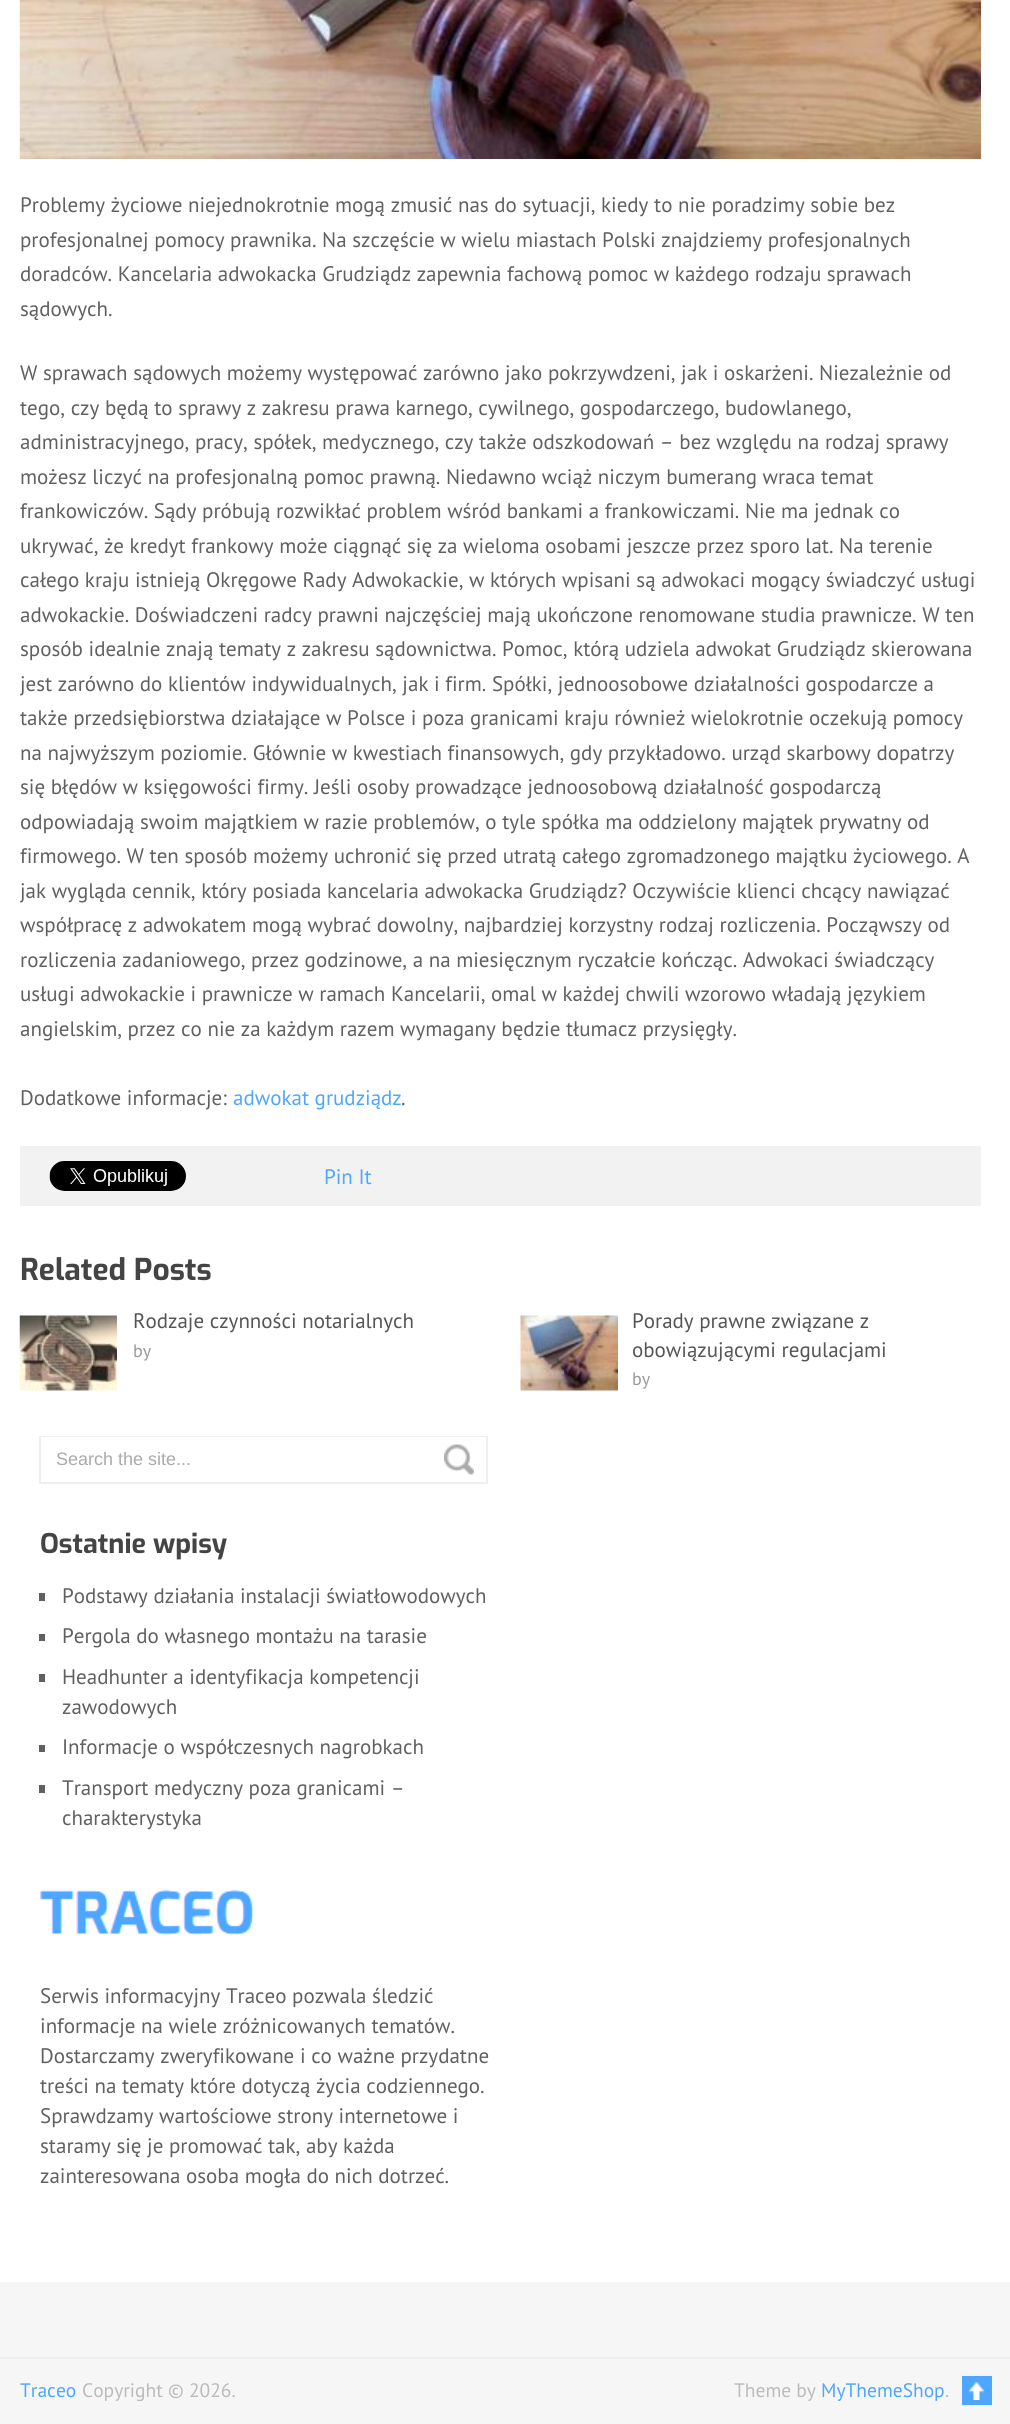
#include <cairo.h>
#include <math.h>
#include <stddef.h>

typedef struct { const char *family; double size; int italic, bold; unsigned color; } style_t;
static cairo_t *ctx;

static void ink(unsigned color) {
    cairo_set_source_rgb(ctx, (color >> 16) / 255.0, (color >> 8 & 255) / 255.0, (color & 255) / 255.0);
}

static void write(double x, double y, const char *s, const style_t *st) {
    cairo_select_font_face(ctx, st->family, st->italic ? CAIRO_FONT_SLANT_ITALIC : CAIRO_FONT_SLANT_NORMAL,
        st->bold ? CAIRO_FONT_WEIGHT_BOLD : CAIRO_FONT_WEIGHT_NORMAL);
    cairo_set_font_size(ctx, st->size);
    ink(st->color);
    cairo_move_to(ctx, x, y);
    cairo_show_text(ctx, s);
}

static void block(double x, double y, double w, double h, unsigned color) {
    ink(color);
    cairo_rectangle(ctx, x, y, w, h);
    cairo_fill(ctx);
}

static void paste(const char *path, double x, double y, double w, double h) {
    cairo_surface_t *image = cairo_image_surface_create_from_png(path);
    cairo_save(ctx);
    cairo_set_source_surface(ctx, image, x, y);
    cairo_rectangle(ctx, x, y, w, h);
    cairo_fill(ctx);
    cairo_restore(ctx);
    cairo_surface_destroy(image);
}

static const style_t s1 = {"PT Sans", 21, 0, 0, 0x606060};
static const style_t s2 = {"PT Sans", 21, 0, 0, 0x4da6ff};
static const style_t s3 = {"Exo", 30, 0, 1, 0x444444};
static const style_t s4 = {"PT Sans", 21, 0, 0, 0x555555};
static const style_t s5 = {"PT Sans", 18, 0, 0, 0x999999};
static const style_t s6 = {"Liberation Sans", 18, 0, 0, 0xaaaaaa};
static const style_t s7 = {"Exo", 27, 0, 1, 0x444444};
static const style_t s8 = {"PT Sans", 19.5, 0, 0, 0x4da6ff};
static const style_t s9 = {"PT Sans", 19.5, 0, 0, 0xbbbbbb};

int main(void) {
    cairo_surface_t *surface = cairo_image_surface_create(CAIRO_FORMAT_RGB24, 1010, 2424);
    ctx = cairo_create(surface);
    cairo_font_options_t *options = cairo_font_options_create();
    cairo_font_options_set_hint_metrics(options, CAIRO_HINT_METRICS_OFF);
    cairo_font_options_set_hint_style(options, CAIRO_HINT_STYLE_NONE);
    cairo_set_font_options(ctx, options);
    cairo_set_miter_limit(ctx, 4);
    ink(0xffffff);
    cairo_paint(ctx);
    paste("pic1.png", 19, 0, 962, 159);
    write(20, 212, "Problemy życiowe niejednokrotnie mogą zmusić nas do sytuacji, kiedy to nie poradzimy sobie bez", &s1);
    write(20, 247, "profesjonalnej pomocy prawnika. Na szczęście w wielu miastach Polski znajdziemy profesjonalnych", &s1);
    write(20, 281, "doradców. Kancelaria adwokacka Grudziądz zapewnia fachową pomoc w każdego rodzaju sprawach", &s1);
    write(20, 316, "sądowych.", &s1);
    write(20, 380, "W sprawach sądowych możemy występować zarówno jako pokrzywdzeni, jak i oskarżeni. Niezależnie od", &s1);
    write(20, 415, "tego, czy będą to sprawy z zakresu prawa karnego, cywilnego, gospodarczego, budowlanego,", &s1);
    write(20, 449, "administracyjnego, pracy, spółek, medycznego, czy także odszkodowań – bez względu na rodzaj sprawy", &s1);
    write(20, 484, "możesz liczyć na profesjonalną pomoc prawną. Niedawno wciąż niczym bumerang wraca temat", &s1);
    write(20, 518, "frankowiczów. Sądy próbują rozwikłać problem wśród bankami a frankowiczami. Nie ma jednak co", &s1);
    write(20, 553, "ukrywać, że kredyt frankowy może ciągnąć się za wieloma osobami jeszcze przez sporo lat. Na terenie", &s1);
    write(20, 587, "całego kraju istnieją Okręgowe Rady Adwokackie, w których wpisani są adwokaci mogący świadczyć usługi", &s1);
    write(20, 622, "adwokackie. Doświadczeni radcy prawni najczęściej mają ukończone renomowane studia prawnicze. W ten", &s1);
    write(20, 656, "sposób idealnie znają tematy z zakresu sądownictwa. Pomoc, którą udziela adwokat Grudziądz skierowana", &s1);
    write(20, 691, "jest zarówno do klientów indywidualnych, jak i firm. Spółki, jednoosobowe działalności gospodarcze a", &s1);
    write(20, 725, "także przedsiębiorstwa działające w Polsce i poza granicami kraju również wielokrotnie oczekują pomocy", &s1);
    write(20, 760, "na najwyższym poziomie. Głównie w kwestiach finansowych, gdy przykładowo. urząd skarbowy dopatrzy", &s1);
    write(20, 794, "się błędów w księgowości firmy. Jeśli osoby prowadzące jednoosobową działalność gospodarczą", &s1);
    write(20, 829, "odpowiadają swoim majątkiem w razie problemów, o tyle spółka ma oddzielony majątek prywatny od", &s1);
    write(20, 863, "firmowego. W ten sposób możemy uchronić się przed utratą całego zgromadzonego majątku życiowego. A", &s1);
    write(20, 898, "jak wygląda cennik, który posiada kancelaria adwokacka Grudziądz? Oczywiście klienci chcący nawiązać", &s1);
    write(20, 932, "współpracę z adwokatem mogą wybrać dowolny, najbardziej korzystny rodzaj rozliczenia. Począwszy od", &s1);
    write(20, 967, "rozliczenia zadaniowego, przez godzinowe, a na miesięcznym ryczałcie kończąc. Adwokaci świadczący", &s1);
    write(20, 1001, "usługi adwokackie i prawnicze w ramach Kancelarii, omal w każdej chwili wzorowo władają językiem", &s1);
    write(20, 1036, "angielskim, przez co nie za każdym razem wymagany będzie tłumacz przysięgły.", &s1);
    write(20, 1105, "Dodatkowe informacje:", &s1);
    write(233, 1105, "adwokat grudziądz", &s2);
    write(401, 1105, ".", &s1);
    block(20, 1146, 961, 60, 0xf2f2f2);
    paste("pic2.png", 49, 1161, 137, 30);
    write(324, 1184, "Pin It", &s2);
    write(20, 1280, "Related Posts", &s3);
    paste("pic3.png", 19, 1315, 98, 76);
    write(133, 1328, "Rodzaje czynności notarialnych", &s4);
    write(133, 1357, "by", &s5);
    paste("pic4.png", 520, 1315, 98, 76);
    write(632, 1328, "Porady prawne związane z", &s4);
    write(632, 1357, "obowiązującymi regulacjami", &s4);
    write(632, 1385, "by", &s5);
    cairo_rectangle(ctx, 40, 1437, 447, 46);
    ink(0xefefef);
    cairo_stroke(ctx);
    block(41, 1437, 445, 1, 0xffffff);
    paste("pic5.png", 444, 1444, 30, 31);
    write(56, 1465, "Search the site...", &s6);
    write(40, 1553, "Ostatnie wpisy", &s7);
    block(39, 1593, 6, 8, 0x606060);
    write(62, 1603, "Podstawy działania instalacji światłowodowych", &s1);
    block(39, 1634, 6, 7, 0x606060);
    write(62, 1643, "Pergola do własnego montażu na tarasie", &s1);
    block(39, 1674, 6, 8, 0x606060);
    write(62, 1684, "Headhunter a identyfikacja kompetencji", &s1);
    write(62, 1714, "zawodowych", &s1);
    block(39, 1745, 6, 7, 0x606060);
    write(62, 1754, "Informacje o współczesnych nagrobkach", &s1);
    block(39, 1785, 6, 8, 0x606060);
    write(62, 1795, "Transport medyczny poza granicami –", &s1);
    write(62, 1825, "charakterystyka", &s1);
    paste("pic6.png", 40, 1889, 214, 47);
    write(40, 2003, "Serwis informacyjny Traceo pozwala śledzić", &s1);
    write(40, 2033, "informacje na wiele zróżnicowanych tematów.", &s1);
    write(40, 2063, "Dostarczamy zweryfikowane i co ważne przydatne", &s1);
    write(40, 2093, "treści na tematy które dotyczą życia codziennego.", &s1);
    write(40, 2123, "Sprawdzamy wartościowe strony internetowe i", &s1);
    write(40, 2153, "staramy się je promować tak, aby każda", &s1);
    write(40, 2183, "zainteresowana osoba mogła do nich dotrzeć.", &s1);
    block(0, 2282, 1010, 142, 0xf6f6f6);
    block(0, 2357, 1010, 2, 0xefefef);
    write(20, 2397, "Traceo", &s8);
    write(82, 2397, "Copyright © 2026.", &s9);
    block(962, 2376, 30, 29, 0x4da6ff);
    write(734, 2397, "Theme by", &s9);
    write(821, 2397, "MyThemeShop", &s8);
    write(945, 2397, ".", &s9);
    paste("pic7.png", 969, 2382, 15, 18);
    cairo_surface_write_to_png(surface, "screenshot.png");
    cairo_font_options_destroy(options);
    cairo_destroy(ctx);
    cairo_surface_destroy(surface);
    return 0;
}
